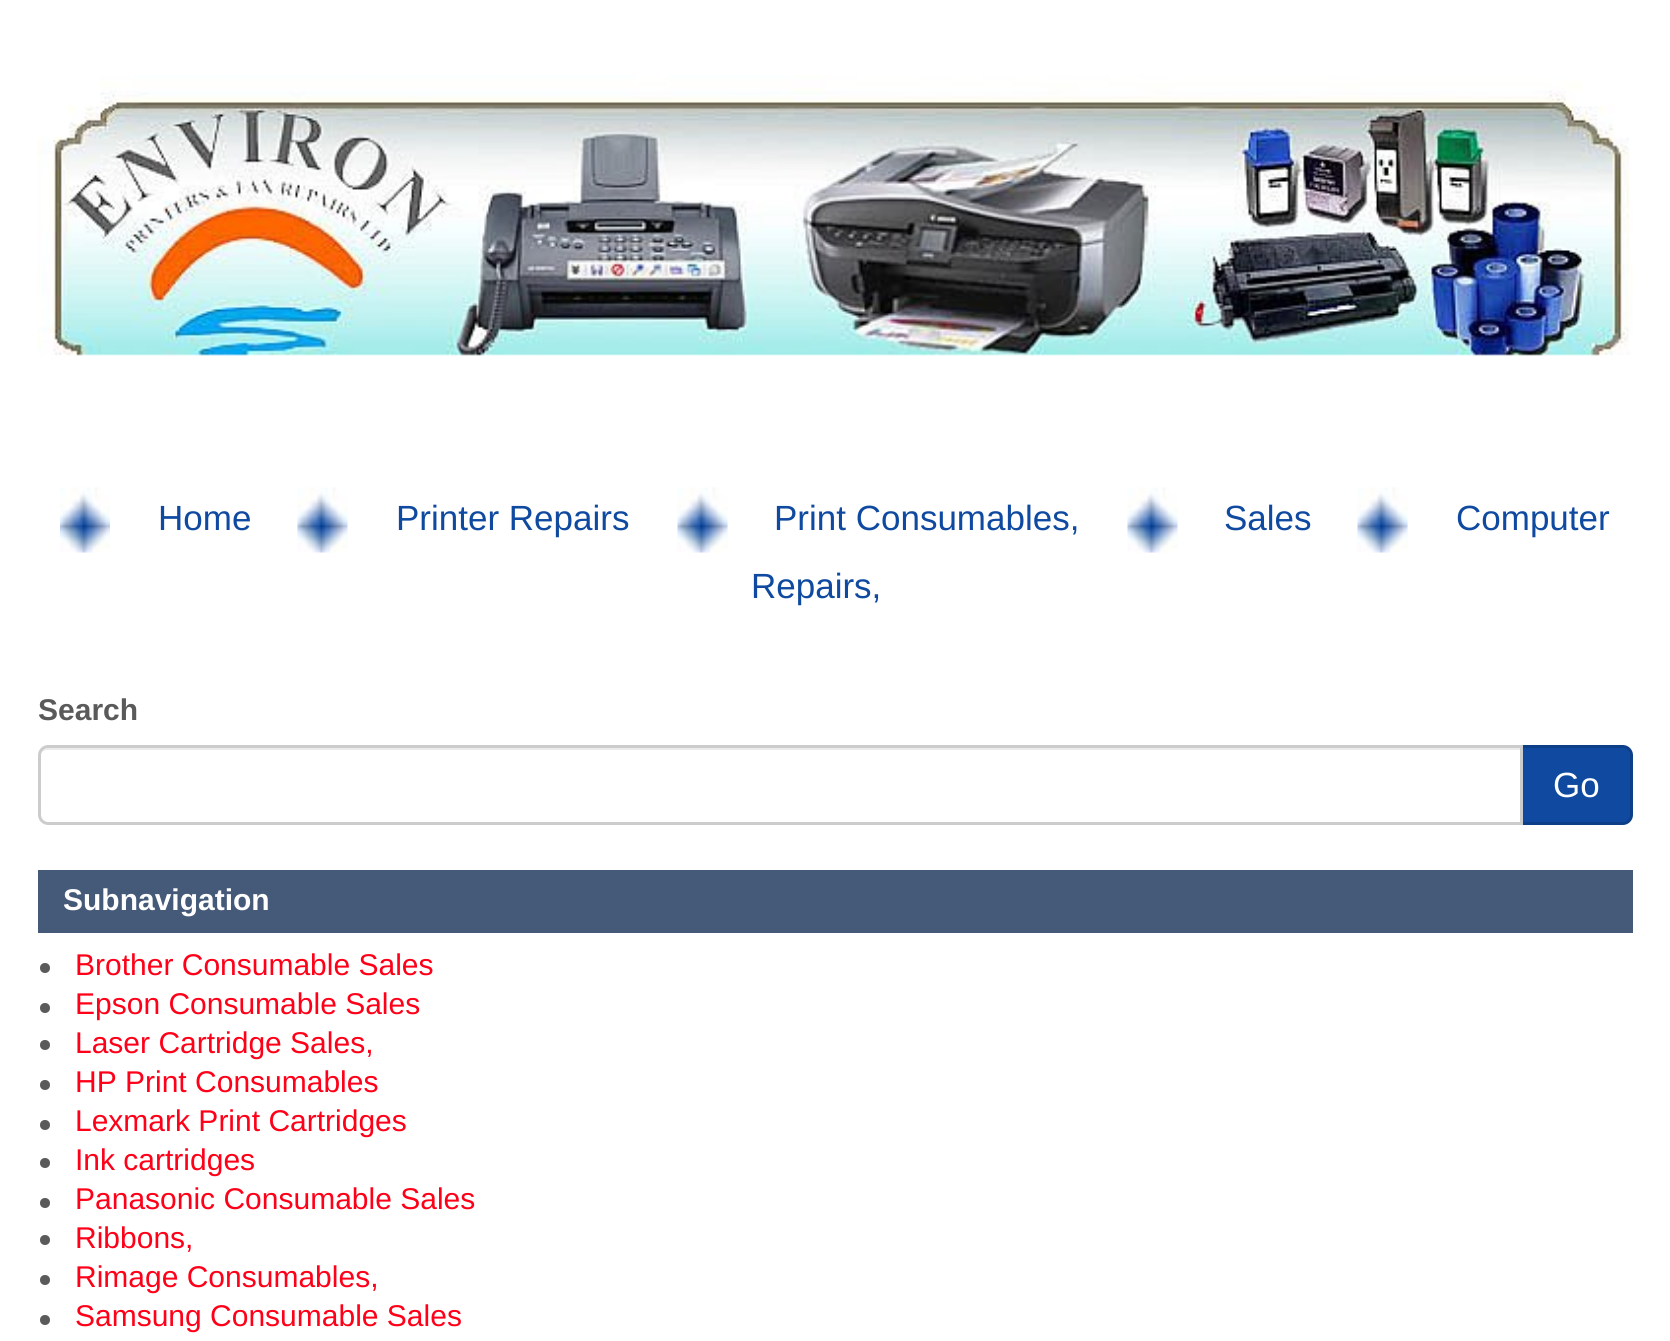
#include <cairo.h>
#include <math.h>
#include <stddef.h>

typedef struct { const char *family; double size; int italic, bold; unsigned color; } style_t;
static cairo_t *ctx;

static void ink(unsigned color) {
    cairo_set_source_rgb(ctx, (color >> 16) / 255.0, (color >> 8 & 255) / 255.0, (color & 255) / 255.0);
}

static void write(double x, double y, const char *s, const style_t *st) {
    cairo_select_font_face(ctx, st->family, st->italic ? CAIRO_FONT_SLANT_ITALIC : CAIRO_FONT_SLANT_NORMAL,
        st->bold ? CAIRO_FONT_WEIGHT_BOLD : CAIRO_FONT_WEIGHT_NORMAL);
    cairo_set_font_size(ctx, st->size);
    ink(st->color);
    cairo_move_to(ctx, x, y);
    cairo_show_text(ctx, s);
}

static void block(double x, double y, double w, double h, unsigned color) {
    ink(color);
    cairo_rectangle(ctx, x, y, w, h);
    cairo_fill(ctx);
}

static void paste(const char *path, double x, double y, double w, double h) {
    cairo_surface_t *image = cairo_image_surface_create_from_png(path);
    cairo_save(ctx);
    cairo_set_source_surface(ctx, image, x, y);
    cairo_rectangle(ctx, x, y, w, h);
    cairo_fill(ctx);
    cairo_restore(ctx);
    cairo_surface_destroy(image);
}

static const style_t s1 = {"Liberation Sans", 35, 0, 0, 0x0f4aa0};
static const style_t s2 = {"Liberation Sans", 30, 0, 1, 0x5a5a5a};
static const style_t s3 = {"Liberation Sans", 35, 0, 0, 0xffffff};
static const style_t s4 = {"Liberation Sans", 30, 0, 1, 0xffffff};
static const style_t s5 = {"Liberation Sans", 30, 0, 0, 0xff0018};

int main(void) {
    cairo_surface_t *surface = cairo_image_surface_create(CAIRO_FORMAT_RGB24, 1670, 1341);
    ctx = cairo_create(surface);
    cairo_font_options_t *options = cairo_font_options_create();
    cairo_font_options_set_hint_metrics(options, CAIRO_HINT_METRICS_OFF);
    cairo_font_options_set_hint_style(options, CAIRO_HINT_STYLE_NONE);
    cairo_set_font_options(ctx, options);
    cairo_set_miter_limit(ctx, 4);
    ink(0xffffff);
    cairo_paint(ctx);
    paste("pic1.png", 37, 75, 1596, 281);
    paste("pic2.png", 60, 487, 50, 66);
    write(158, 530, "Home", &s1);
    paste("pic3.png", 297, 487, 51, 66);
    write(396, 530, "Printer Repairs", &s1);
    paste("pic3.png", 677, 487, 51, 66);
    write(774, 530, "Print Consumables,", &s1);
    paste("pic4.png", 1127, 487, 51, 66);
    write(1224, 530, "Sales", &s1);
    paste("pic3.png", 1357, 487, 51, 66);
    write(1456, 530, "Computer", &s1);
    write(751, 598, "Repairs,", &s1);
    write(38, 720, "Search", &s2);
    ink(0x0f4aa0);
    cairo_new_path(ctx);
    cairo_move_to(ctx, 1521.5, 746.5);
    cairo_line_to(ctx, 1623, 746.5);
    cairo_curve_to(ctx, 1627.5, 746.5, 1631.5, 750.5, 1631.5, 755);
    cairo_line_to(ctx, 1631.5, 815);
    cairo_curve_to(ctx, 1631.5, 819.5, 1627.5, 823.5, 1623, 823.5);
    cairo_line_to(ctx, 1521.5, 823.5);
    cairo_close_path(ctx);
    cairo_fill_preserve(ctx);
    ink(0x0d3f89);
    cairo_set_line_width(ctx, 3);
    cairo_stroke(ctx);
    ink(0xffffff);
    cairo_new_path(ctx);
    cairo_move_to(ctx, 48, 745);
    cairo_line_to(ctx, 1523, 745);
    cairo_line_to(ctx, 1523, 825);
    cairo_line_to(ctx, 48, 825);
    cairo_curve_to(ctx, 42.5, 825, 38, 820.5, 38, 815);
    cairo_line_to(ctx, 38, 755);
    cairo_curve_to(ctx, 38, 749.5, 42.5, 745, 48, 745);
    cairo_close_path(ctx);
    cairo_fill(ctx);
    ink(0xececec);
    cairo_new_path(ctx);
    cairo_move_to(ctx, 48, 750);
    cairo_line_to(ctx, 1520, 750);
    cairo_line_to(ctx, 1520, 748);
    cairo_line_to(ctx, 48, 748);
    cairo_curve_to(ctx, 44, 748, 40, 752, 40, 756);
    cairo_line_to(ctx, 40, 758);
    cairo_curve_to(ctx, 40, 753, 43, 750, 48, 750);
    cairo_close_path(ctx);
    cairo_fill(ctx);
    cairo_new_path(ctx);
    cairo_move_to(ctx, 48, 746.5);
    cairo_line_to(ctx, 1521.5, 746.5);
    cairo_line_to(ctx, 1521.5, 823.5);
    cairo_line_to(ctx, 48, 823.5);
    cairo_curve_to(ctx, 43.5, 823.5, 39.5, 819.5, 39.5, 815);
    cairo_line_to(ctx, 39.5, 755);
    cairo_curve_to(ctx, 39.5, 750.5, 43.5, 746.5, 48, 746.5);
    cairo_close_path(ctx);
    ink(0xcccccc);
    cairo_stroke(ctx);
    write(1553, 797, "Go", &s3);
    block(38, 870, 1595, 63, 0x455a79);
    write(63, 910, "Subnavigation", &s4);
    ink(0x5a5a5a);
    cairo_new_path(ctx);
    cairo_arc(ctx, 45, 968, 5, 0, 2 * M_PI);
    cairo_fill(ctx);
    write(75, 975, "Brother Consumable Sales", &s5);
    ink(0x5a5a5a);
    cairo_new_path(ctx);
    cairo_arc(ctx, 45, 1008, 5, 0, 2 * M_PI);
    cairo_fill(ctx);
    write(75, 1014, "Epson Consumable Sales", &s5);
    ink(0x5a5a5a);
    cairo_new_path(ctx);
    cairo_arc(ctx, 45, 1045, 5, 0, 2 * M_PI);
    cairo_fill(ctx);
    write(75, 1053, "Laser Cartridge Sales,", &s5);
    ink(0x5a5a5a);
    cairo_new_path(ctx);
    cairo_arc(ctx, 45, 1085, 5, 0, 2 * M_PI);
    cairo_fill(ctx);
    write(75, 1092, "HP Print Consumables", &s5);
    ink(0x5a5a5a);
    cairo_new_path(ctx);
    cairo_arc(ctx, 45, 1125, 5, 0, 2 * M_PI);
    cairo_fill(ctx);
    write(75, 1131, "Lexmark Print Cartridges", &s5);
    ink(0x5a5a5a);
    cairo_new_path(ctx);
    cairo_arc(ctx, 45, 1163, 5, 0, 2 * M_PI);
    cairo_fill(ctx);
    write(75, 1170, "Ink cartridges", &s5);
    ink(0x5a5a5a);
    cairo_new_path(ctx);
    cairo_arc(ctx, 45, 1203, 5, 0, 2 * M_PI);
    cairo_fill(ctx);
    write(75, 1209, "Panasonic Consumable Sales", &s5);
    ink(0x5a5a5a);
    cairo_new_path(ctx);
    cairo_arc(ctx, 45, 1240, 5, 0, 2 * M_PI);
    cairo_fill(ctx);
    write(75, 1248, "Ribbons,", &s5);
    ink(0x5a5a5a);
    cairo_new_path(ctx);
    cairo_arc(ctx, 45, 1280, 5, 0, 2 * M_PI);
    cairo_fill(ctx);
    write(75, 1287, "Rimage Consumables,", &s5);
    ink(0x5a5a5a);
    cairo_new_path(ctx);
    cairo_arc(ctx, 45, 1320, 5, 0, 2 * M_PI);
    cairo_fill(ctx);
    write(75, 1326, "Samsung Consumable Sales", &s5);
    cairo_surface_write_to_png(surface, "screenshot.png");
    cairo_font_options_destroy(options);
    cairo_destroy(ctx);
    cairo_surface_destroy(surface);
    return 0;
}
